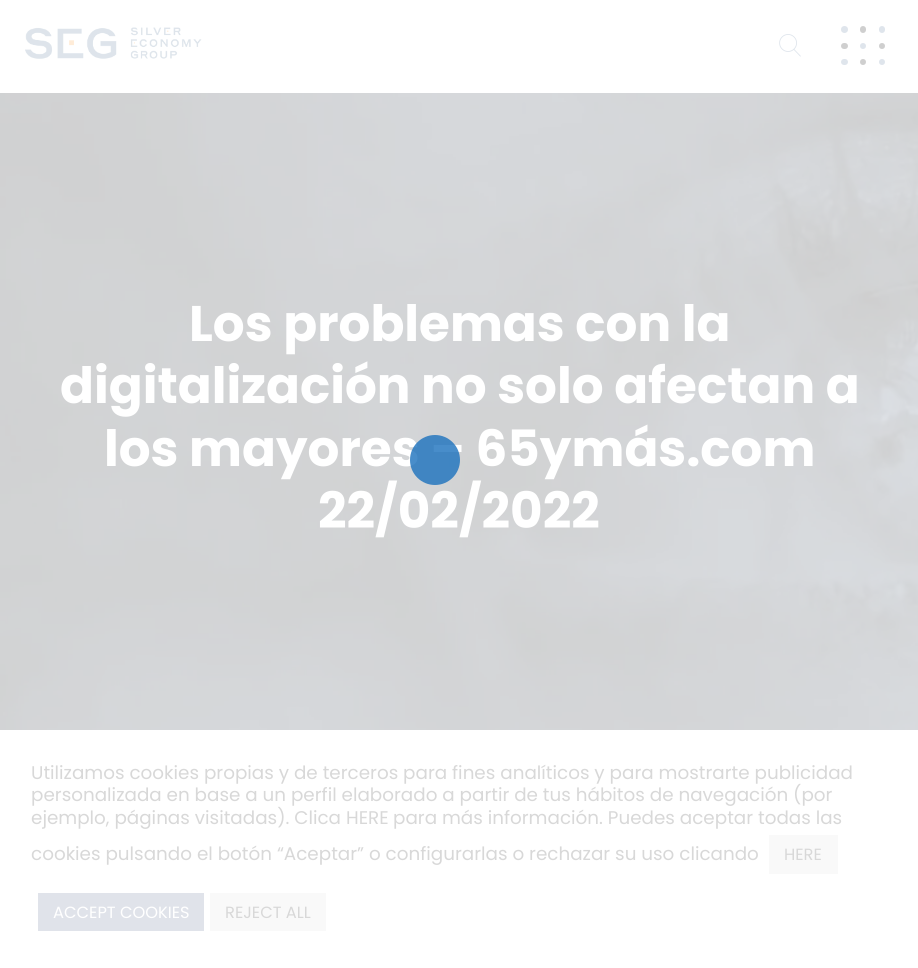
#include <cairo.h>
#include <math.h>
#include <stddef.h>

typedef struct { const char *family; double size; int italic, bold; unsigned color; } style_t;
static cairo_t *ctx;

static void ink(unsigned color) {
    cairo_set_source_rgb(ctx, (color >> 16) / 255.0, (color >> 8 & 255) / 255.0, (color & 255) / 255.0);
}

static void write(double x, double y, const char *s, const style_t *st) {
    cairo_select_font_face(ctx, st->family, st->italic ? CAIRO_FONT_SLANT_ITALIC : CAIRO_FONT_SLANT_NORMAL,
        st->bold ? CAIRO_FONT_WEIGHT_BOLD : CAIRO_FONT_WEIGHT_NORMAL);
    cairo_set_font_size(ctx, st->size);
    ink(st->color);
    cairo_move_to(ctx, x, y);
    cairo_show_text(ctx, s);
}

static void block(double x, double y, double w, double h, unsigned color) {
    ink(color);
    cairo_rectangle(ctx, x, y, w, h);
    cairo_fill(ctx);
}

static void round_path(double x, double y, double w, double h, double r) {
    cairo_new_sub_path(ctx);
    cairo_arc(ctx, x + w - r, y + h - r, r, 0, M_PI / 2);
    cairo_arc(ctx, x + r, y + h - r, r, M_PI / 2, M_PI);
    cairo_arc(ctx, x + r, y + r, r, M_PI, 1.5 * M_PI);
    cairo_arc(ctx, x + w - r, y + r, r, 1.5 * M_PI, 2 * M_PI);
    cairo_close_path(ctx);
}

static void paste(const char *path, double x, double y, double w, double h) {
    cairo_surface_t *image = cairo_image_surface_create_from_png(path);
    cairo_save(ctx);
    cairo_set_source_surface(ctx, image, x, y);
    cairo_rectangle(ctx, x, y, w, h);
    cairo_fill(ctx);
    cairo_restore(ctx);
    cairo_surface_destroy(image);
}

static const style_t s1 = {"Poppins", 50, 0, 1, 0xffffff};
static const style_t s2 = {"Poppins", 18.35, 0, 0, 0xd8d8d8};
static const style_t s3 = {"Poppins", 16.25, 0, 0, 0xd8d8d8};
static const style_t s4 = {"Poppins", 16.25, 0, 0, 0xffffff};

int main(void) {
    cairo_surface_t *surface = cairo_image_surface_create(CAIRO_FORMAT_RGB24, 918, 968);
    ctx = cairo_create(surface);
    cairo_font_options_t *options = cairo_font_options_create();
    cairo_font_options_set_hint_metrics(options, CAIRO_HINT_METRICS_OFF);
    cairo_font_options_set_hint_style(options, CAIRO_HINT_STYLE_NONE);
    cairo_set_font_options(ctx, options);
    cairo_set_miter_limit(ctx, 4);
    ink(0xffffff);
    cairo_paint(ctx);
    paste("pic1.png", 25, 27, 177, 32);
    paste("pic2.png", 779, 34, 22, 23);
    ink(0xdfe5ec);
    cairo_arc(ctx, 844.5, 29.5, 3.5, 0, 2 * M_PI);
    cairo_fill(ctx);
    ink(0xcfcfcf);
    round_path(860, 26, 6, 7, 3);
    cairo_fill(ctx);
    ink(0xdfe5ec);
    round_path(879, 26, 6, 7, 3);
    cairo_fill(ctx);
    ink(0xcfcfcf);
    round_path(841, 43, 7, 6, 3);
    cairo_fill(ctx);
    ink(0xdfe5ec);
    cairo_arc(ctx, 863, 46, 3, 0, 2 * M_PI);
    cairo_fill(ctx);
    ink(0xcfcfcf);
    cairo_arc(ctx, 882, 46, 3, 0, 2 * M_PI);
    cairo_fill(ctx);
    ink(0xdfe5ec);
    round_path(841, 59, 7, 6, 3);
    cairo_fill(ctx);
    ink(0xcfcfcf);
    cairo_arc(ctx, 863, 62, 3, 0, 2 * M_PI);
    cairo_fill(ctx);
    ink(0xdfe5ec);
    cairo_arc(ctx, 882, 62, 3, 0, 2 * M_PI);
    cairo_fill(ctx);
    paste("pic3.png", 0, 93, 918, 637);
    write(189, 341, "Los problemas con la", &s1);
    write(60, 403, "digitalización no solo afectan a", &s1);
    write(104, 466, "los mayores – 65ymás.com", &s1);
    write(318, 528, "22/02/2022", &s1);
    cairo_set_source_rgba(ctx, 0.118, 0.451, 0.745, 0.81);
    cairo_new_path(ctx);
    cairo_arc(ctx, 435, 460, 25, 0, 2 * M_PI);
    cairo_fill(ctx);
    write(31, 779, "Utilizamos cookies propias y de terceros para fines analíticos y para mostrarte publicidad", &s2);
    write(31, 801, "personalizada en base a un perfil elaborado a partir de tus hábitos de navegación (por", &s2);
    write(31, 824, "ejemplo, páginas visitadas). Clica", &s2);
    write(346, 824, "HERE", &s2);
    write(393, 824, "para más información. Puedes aceptar todas las", &s2);
    write(31, 860, "cookies pulsando el botón “Aceptar” o configurarlas o rechazar su uso clicando", &s2);
    block(769, 835, 69, 39, 0xf9f9f9);
    write(784, 860, "HERE", &s3);
    block(38, 893, 166, 38, 0xe0e3ea);
    write(53, 918, "ACCEPT COOKIES", &s4);
    block(210, 893, 116, 38, 0xf9f9f9);
    write(225, 918, "REJECT ALL", &s3);
    cairo_surface_write_to_png(surface, "screenshot.png");
    cairo_font_options_destroy(options);
    cairo_destroy(ctx);
    cairo_surface_destroy(surface);
    return 0;
}
